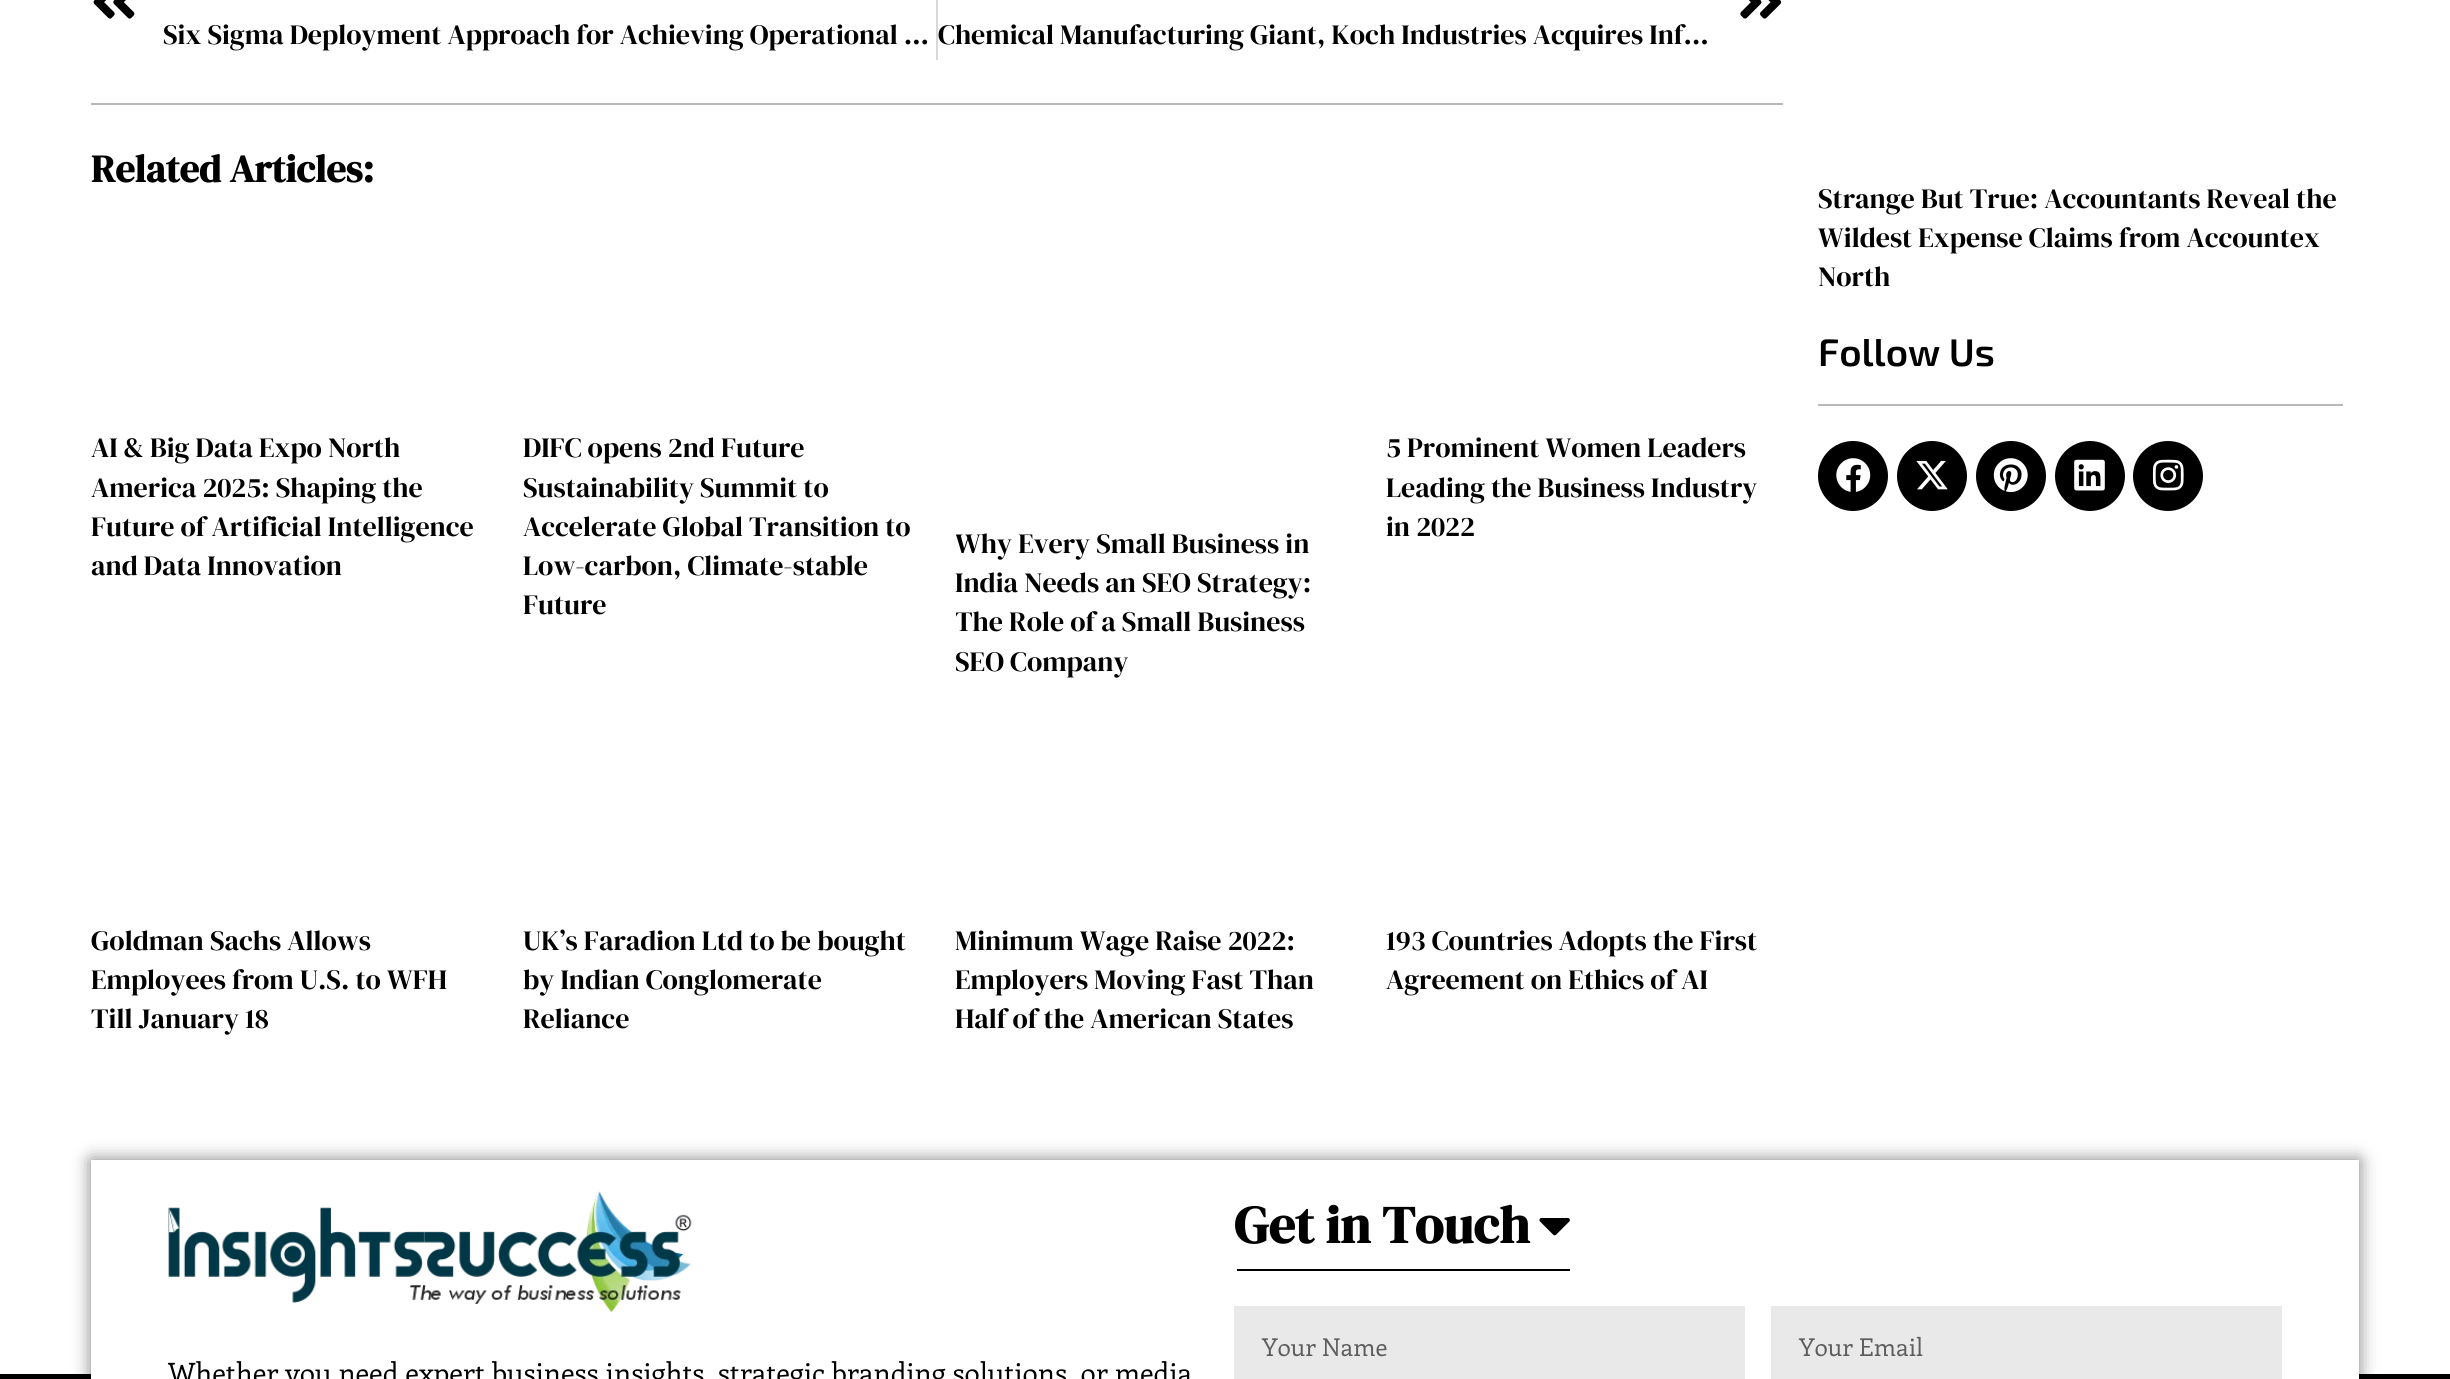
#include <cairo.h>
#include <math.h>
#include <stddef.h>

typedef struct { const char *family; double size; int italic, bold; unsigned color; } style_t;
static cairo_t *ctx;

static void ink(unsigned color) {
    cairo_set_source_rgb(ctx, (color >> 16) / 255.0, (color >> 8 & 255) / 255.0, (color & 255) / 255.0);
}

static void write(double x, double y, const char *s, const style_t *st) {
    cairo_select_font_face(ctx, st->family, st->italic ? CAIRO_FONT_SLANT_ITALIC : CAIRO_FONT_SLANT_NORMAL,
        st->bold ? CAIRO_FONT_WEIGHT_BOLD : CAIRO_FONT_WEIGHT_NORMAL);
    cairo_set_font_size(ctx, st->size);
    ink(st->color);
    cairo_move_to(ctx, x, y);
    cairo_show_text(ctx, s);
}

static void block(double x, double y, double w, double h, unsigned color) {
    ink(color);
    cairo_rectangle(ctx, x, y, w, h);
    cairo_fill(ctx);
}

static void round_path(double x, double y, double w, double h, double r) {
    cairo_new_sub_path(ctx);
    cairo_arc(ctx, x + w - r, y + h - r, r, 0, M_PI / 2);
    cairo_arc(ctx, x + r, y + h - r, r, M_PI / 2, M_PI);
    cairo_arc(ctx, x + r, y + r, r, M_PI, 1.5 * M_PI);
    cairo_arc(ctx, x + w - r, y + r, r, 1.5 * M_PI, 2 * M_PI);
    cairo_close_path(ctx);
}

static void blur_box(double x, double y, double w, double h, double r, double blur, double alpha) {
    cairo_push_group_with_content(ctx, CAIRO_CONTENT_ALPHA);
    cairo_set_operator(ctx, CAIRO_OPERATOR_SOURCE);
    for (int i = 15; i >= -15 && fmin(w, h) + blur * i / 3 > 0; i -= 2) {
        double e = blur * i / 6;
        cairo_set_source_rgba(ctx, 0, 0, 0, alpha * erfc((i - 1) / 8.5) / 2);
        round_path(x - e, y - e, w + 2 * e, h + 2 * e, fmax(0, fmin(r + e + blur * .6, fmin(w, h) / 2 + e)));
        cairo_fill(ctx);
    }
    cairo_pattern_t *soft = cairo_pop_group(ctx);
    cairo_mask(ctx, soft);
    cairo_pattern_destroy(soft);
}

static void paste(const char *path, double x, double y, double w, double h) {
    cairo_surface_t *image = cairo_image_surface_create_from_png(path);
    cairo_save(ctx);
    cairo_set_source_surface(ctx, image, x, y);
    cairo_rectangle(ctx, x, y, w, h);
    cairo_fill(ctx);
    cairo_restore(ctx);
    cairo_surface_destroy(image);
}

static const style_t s1 = {"DM Serif Display", 28, 0, 0, 0x000000};
static const style_t s2 = {"DM Serif Display", 38.5, 0, 1, 0x000000};
static const style_t s3 = {"Exo 2 SemiBold", 38.5, 0, 0, 0x000000};
static const style_t s4 = {"DM Serif Display", 52.5, 0, 1, 0x000000};
static const style_t s5 = {"Enriqueta", 24.5, 0, 0, 0x5d5d5d};
static const style_t s6 = {"Enriqueta", 28, 0, 0, 0x000000};

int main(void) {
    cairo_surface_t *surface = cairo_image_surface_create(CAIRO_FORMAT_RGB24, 2450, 1379);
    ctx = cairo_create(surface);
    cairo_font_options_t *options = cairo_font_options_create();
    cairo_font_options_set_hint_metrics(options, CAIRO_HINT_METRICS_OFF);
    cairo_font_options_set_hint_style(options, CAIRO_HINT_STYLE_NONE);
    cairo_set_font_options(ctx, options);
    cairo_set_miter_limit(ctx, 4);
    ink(0xffffff);
    cairo_paint(ctx);
    paste("pic1.png", 93, 0, 42, 19);
    write(163, 44, "Six Sigma Deployment Approach for Achieving Operational …", &s1);
    block(936, 0, 2, 60, 0xd5d8dc);
    paste("pic2.png", 1740, 0, 42, 19);
    write(938, 44, "Chemical Manufacturing Giant, Koch Industries Acquires Inf…", &s1);
    block(91, 103, 1692, 2, 0xb9b9b9);
    write(91, 182, "Related Articles:", &s2);
    write(91, 457, "AI & Big Data Expo North", &s1);
    write(91, 497, "America 2025: Shaping the", &s1);
    write(91, 536, "Future of Artificial Intelligence", &s1);
    write(91, 575, "and Data Innovation", &s1);
    write(523, 457, "DIFC opens 2nd Future", &s1);
    write(523, 497, "Sustainability Summit to", &s1);
    write(523, 536, "Accelerate Global Transition to", &s1);
    write(523, 575, "Low-carbon, Climate-stable", &s1);
    write(523, 614, "Future", &s1);
    write(1386, 457, "5 Prominent Women Leaders", &s1);
    write(1386, 497, "Leading the Business Industry", &s1);
    write(1386, 536, "in 2022", &s1);
    cairo_save(ctx);
    cairo_rectangle(ctx, 956, 222, 395, 459);
    cairo_clip(ctx);
    write(955, 553, "Why Every Small Business in", &s1);
    cairo_restore(ctx);
    write(955, 592, "India Needs an SEO Strategy:", &s1);
    cairo_save(ctx);
    cairo_rectangle(ctx, 956, 222, 395, 459);
    cairo_clip(ctx);
    write(955, 631, "The Role of a Small Business", &s1);
    write(955, 671, "SEO Company", &s1);
    cairo_restore(ctx);
    write(91, 950, "Goldman Sachs Allows", &s1);
    write(91, 989, "Employees from U.S. to WFH", &s1);
    write(91, 1028, "Till January 18", &s1);
    write(523, 950, "UK’s Faradion Ltd to be bought", &s1);
    write(523, 989, "by Indian Conglomerate", &s1);
    write(523, 1028, "Reliance", &s1);
    write(955, 950, "Minimum Wage Raise 2022:", &s1);
    write(955, 989, "Employers Moving Fast Than", &s1);
    write(955, 1028, "Half of the American States", &s1);
    write(1386, 950, "193 Countries Adopts the First", &s1);
    write(1386, 989, "Agreement on Ethics of AI", &s1);
    write(1818, 208, "Strange But True: Accountants Reveal the", &s1);
    write(1818, 247, "Wildest Expense Claims from Accountex", &s1);
    write(1818, 286, "North", &s1);
    write(1818, 366, "Follow Us", &s3);
    block(1818, 404, 525, 2, 0xb9b9b9);
    ink(0x000000);
    cairo_new_path(ctx);
    cairo_arc(ctx, 1853, 476, 35, 0, 2 * M_PI);
    cairo_fill(ctx);
    paste("pic3.png", 1836, 458, 35, 34);
    cairo_arc(ctx, 1932, 476, 35, 0, 2 * M_PI);
    cairo_fill(ctx);
    paste("pic4.png", 1916, 460, 32, 30);
    cairo_arc(ctx, 2011, 476, 35, 0, 2 * M_PI);
    cairo_fill(ctx);
    paste("pic5.png", 1993, 458, 35, 35);
    cairo_arc(ctx, 2090, 476, 35, 0, 2 * M_PI);
    cairo_fill(ctx);
    paste("pic6.png", 2074, 459, 31, 32);
    cairo_arc(ctx, 2168, 476, 35, 0, 2 * M_PI);
    cairo_fill(ctx);
    paste("pic7.png", 2152, 459, 32, 32);
    block(0, 1374, 2450, 5, 0x000000);
    ink(0x000000);
    blur_box(91, 1160, 2268, 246, 0, 9, 0.5);
    block(91, 1160, 2268, 219, 0xffffff);
    block(1237, 1269, 333, 2, 0x000000);
    write(1234, 1243, "Get in Touch", &s4);
    paste("pic8.png", 1539, 1218, 31, 18);
    block(1234, 1306, 511, 73, 0xe9e9e9);
    write(1262, 1356, "Your Name", &s5);
    block(1771, 1306, 511, 73, 0xe9e9e9);
    write(1799, 1356, "Your Email", &s5);
    paste("pic9.png", 168, 1191, 524, 122);
    write(168, 1383, "Whether you need expert business insights, strategic branding solutions, or media", &s6);
    cairo_surface_write_to_png(surface, "screenshot.png");
    cairo_font_options_destroy(options);
    cairo_destroy(ctx);
    cairo_surface_destroy(surface);
    return 0;
}
